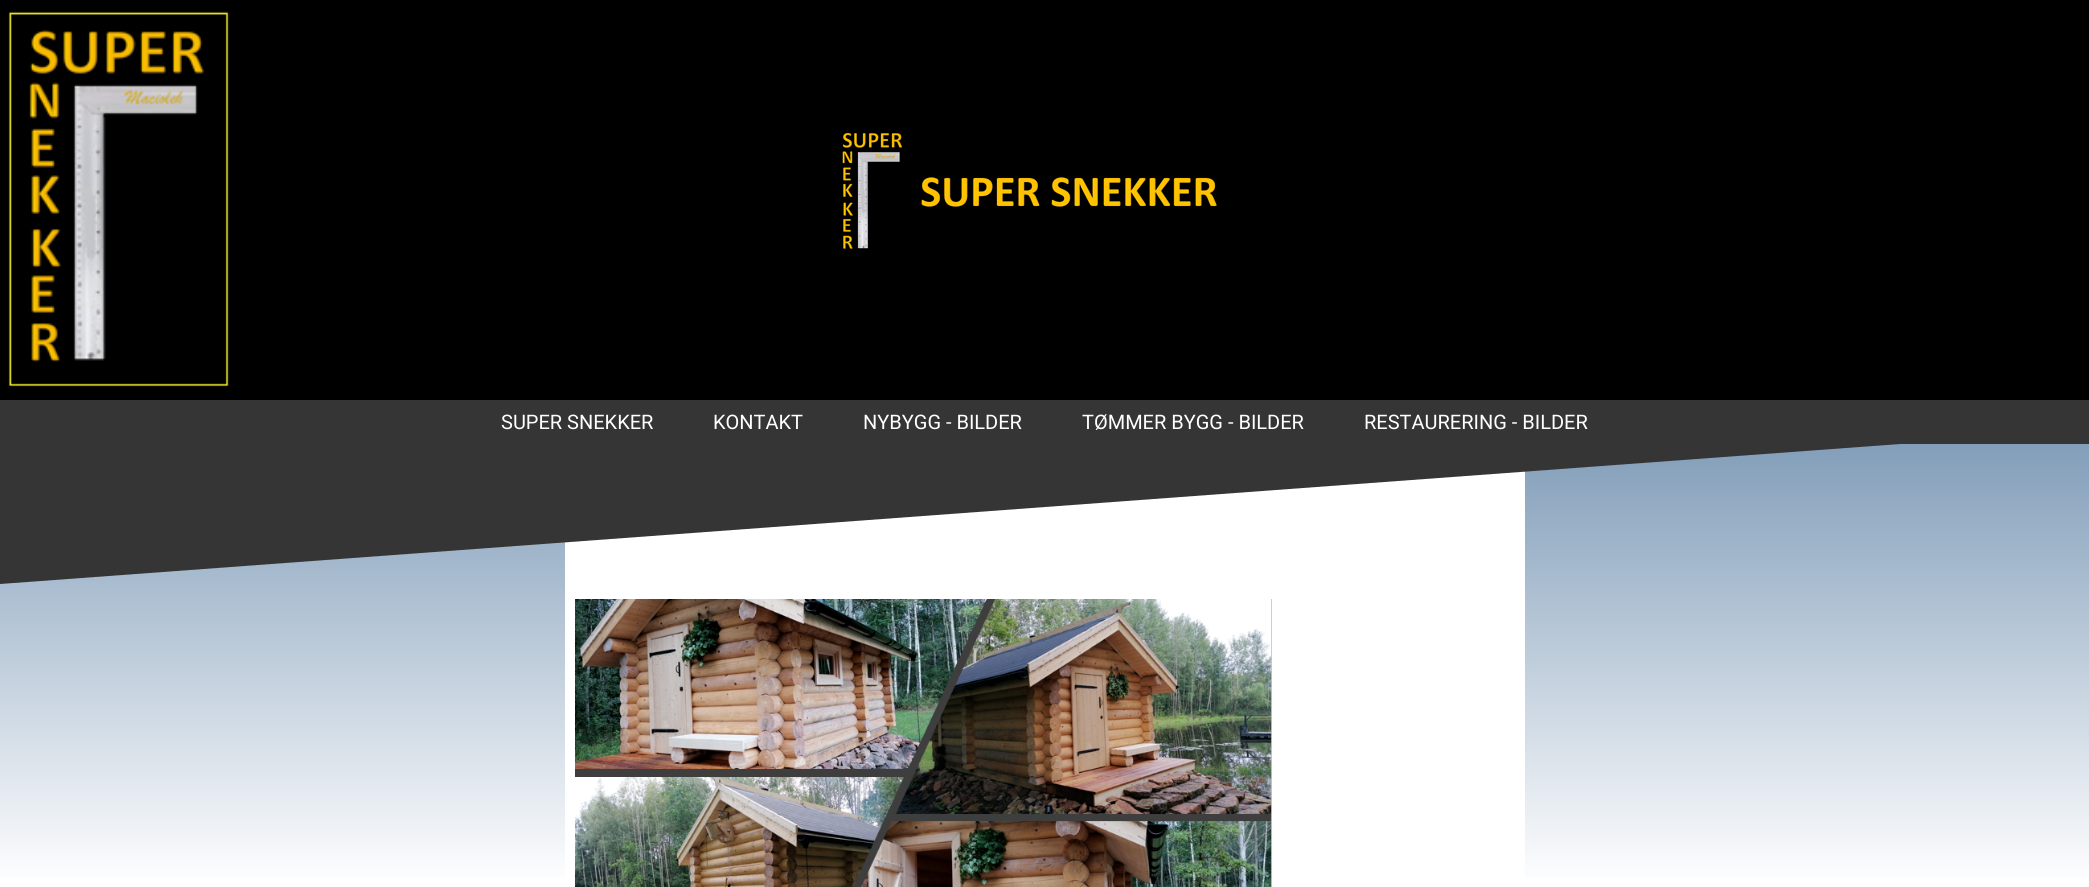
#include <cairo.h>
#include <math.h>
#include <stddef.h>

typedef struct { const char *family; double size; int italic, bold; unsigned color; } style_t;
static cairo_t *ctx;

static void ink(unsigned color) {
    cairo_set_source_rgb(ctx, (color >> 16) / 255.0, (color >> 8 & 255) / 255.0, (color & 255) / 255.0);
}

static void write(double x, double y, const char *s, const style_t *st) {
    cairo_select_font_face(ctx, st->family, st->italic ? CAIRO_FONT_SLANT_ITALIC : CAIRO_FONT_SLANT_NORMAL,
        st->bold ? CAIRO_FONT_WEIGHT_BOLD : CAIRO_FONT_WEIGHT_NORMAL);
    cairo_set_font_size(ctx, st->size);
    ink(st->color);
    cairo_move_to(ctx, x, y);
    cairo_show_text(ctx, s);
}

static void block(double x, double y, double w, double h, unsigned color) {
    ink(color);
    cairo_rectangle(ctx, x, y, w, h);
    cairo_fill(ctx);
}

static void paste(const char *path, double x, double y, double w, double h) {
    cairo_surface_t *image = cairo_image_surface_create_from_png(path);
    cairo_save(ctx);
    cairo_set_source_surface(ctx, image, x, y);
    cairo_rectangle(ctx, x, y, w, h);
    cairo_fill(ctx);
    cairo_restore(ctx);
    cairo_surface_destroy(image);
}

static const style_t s1 = {"Roboto", 20, 0, 0, 0xffffff};

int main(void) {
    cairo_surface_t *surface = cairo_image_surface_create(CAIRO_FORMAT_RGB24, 2089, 887);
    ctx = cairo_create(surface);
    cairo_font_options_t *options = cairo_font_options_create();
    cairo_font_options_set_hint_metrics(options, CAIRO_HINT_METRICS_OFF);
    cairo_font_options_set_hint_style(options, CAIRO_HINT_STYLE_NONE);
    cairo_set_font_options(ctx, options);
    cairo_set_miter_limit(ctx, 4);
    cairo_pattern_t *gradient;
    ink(0xffffff);
    cairo_paint(ctx);
    gradient = cairo_pattern_create_linear(1045, 0, 1045, 887);
    cairo_pattern_add_color_stop_rgba(gradient, 0, 0.024, 0.239, 0.455, 1);
    cairo_pattern_add_color_stop_rgba(gradient, 1, 1, 1, 1, 1);
    cairo_set_source(ctx, gradient);
    cairo_pattern_destroy(gradient);
    cairo_rectangle(ctx, 0, 444, 2089, 434);
    cairo_fill(ctx);
    paste("pic1.png", 0, 0, 2089, 400);
    paste("pic2.png", 842, 132, 375, 117);
    block(0, 400, 2089, 44, 0x353535);
    write(501, 429, "SUPER SNEKKER", &s1);
    write(713, 429, "KONTAKT", &s1);
    write(863, 429, "NYBYGG - BILDER", &s1);
    write(1082, 429, "TØMMER BYGG - BILDER", &s1);
    write(1364, 429, "RESTAURERING - BILDER", &s1);
    block(565, 471, 960, 407, 0xffffff);
    ink(0x353535);
    cairo_new_path(ctx);
    cairo_move_to(ctx, 0, 584);
    cairo_line_to(ctx, 0, 444);
    cairo_line_to(ctx, 1900, 444);
    cairo_close_path(ctx);
    cairo_fill(ctx);
    paste("pic3.png", 575, 599, 697, 288);
    cairo_surface_write_to_png(surface, "screenshot.png");
    cairo_font_options_destroy(options);
    cairo_destroy(ctx);
    cairo_surface_destroy(surface);
    return 0;
}
